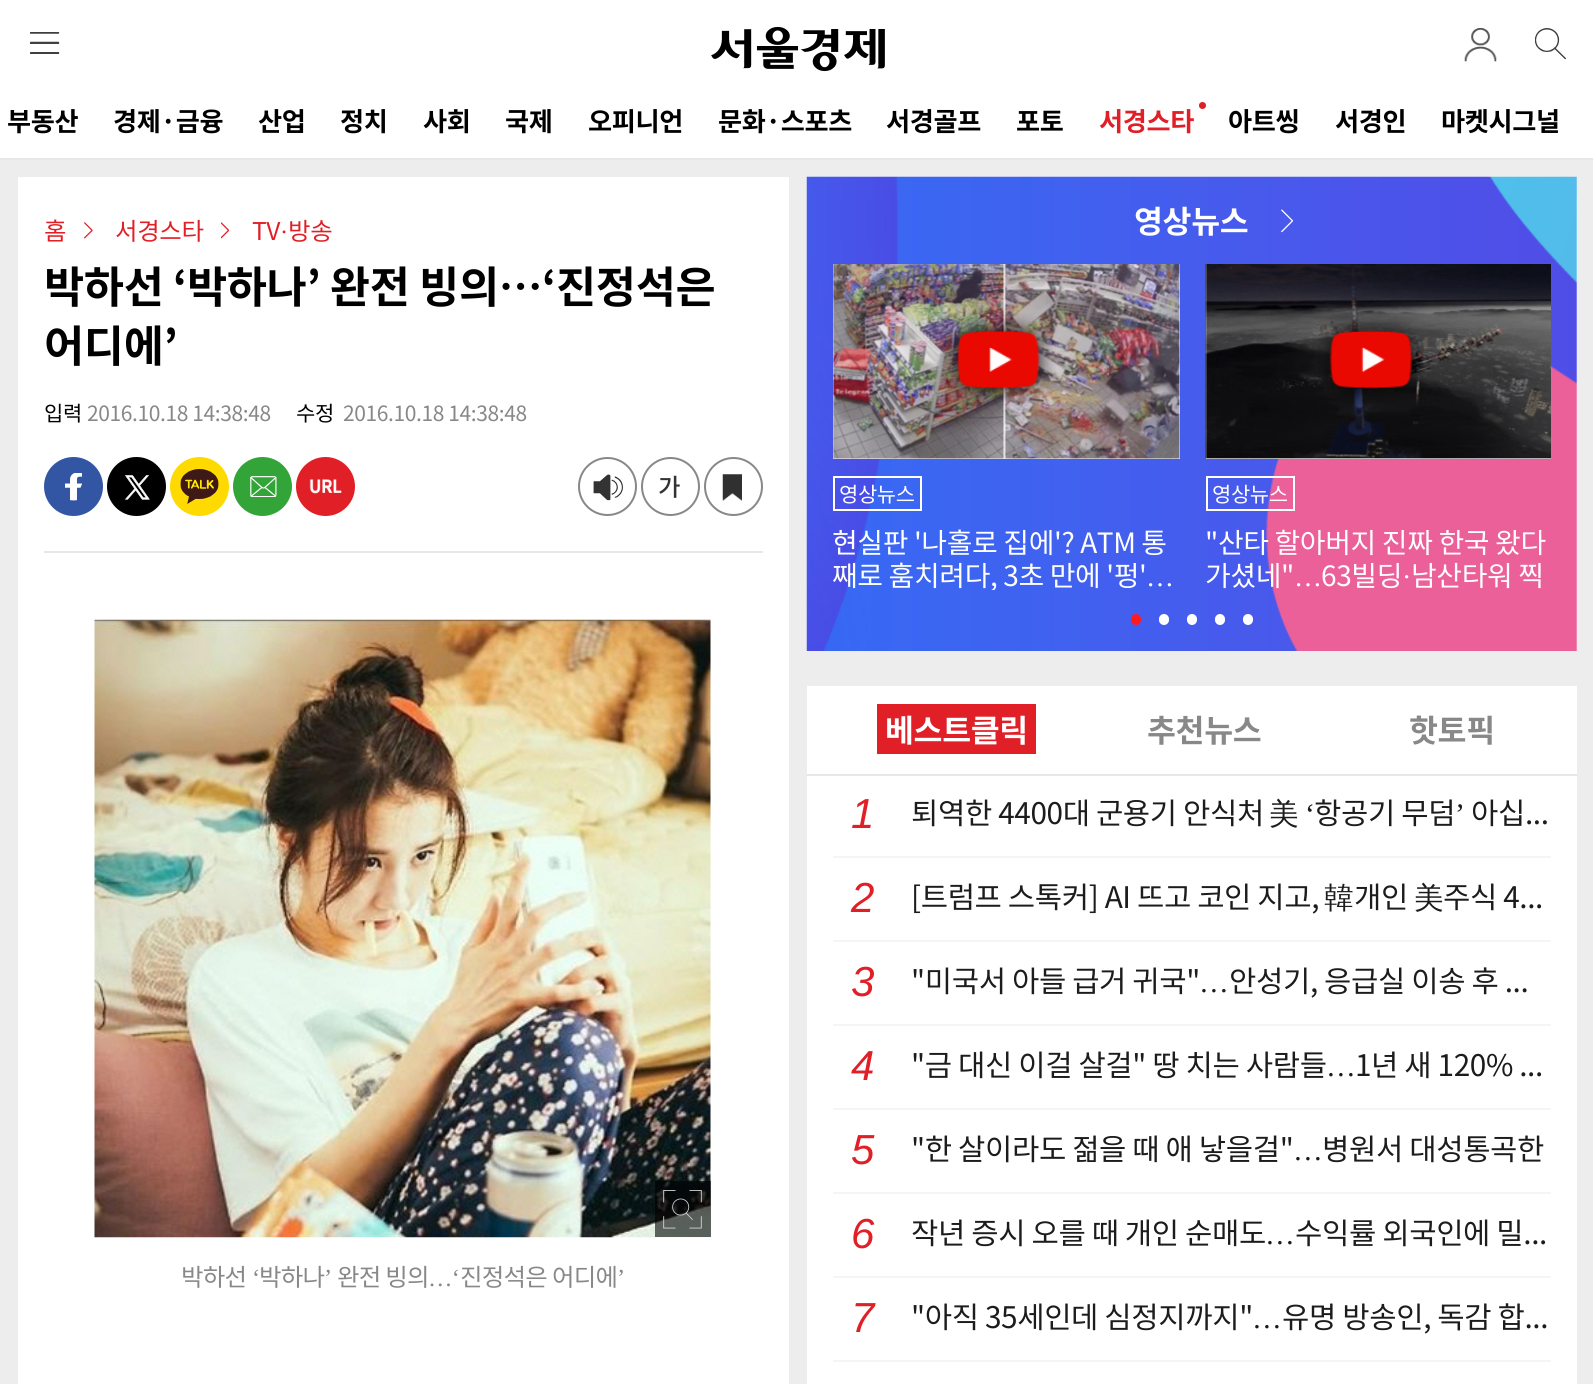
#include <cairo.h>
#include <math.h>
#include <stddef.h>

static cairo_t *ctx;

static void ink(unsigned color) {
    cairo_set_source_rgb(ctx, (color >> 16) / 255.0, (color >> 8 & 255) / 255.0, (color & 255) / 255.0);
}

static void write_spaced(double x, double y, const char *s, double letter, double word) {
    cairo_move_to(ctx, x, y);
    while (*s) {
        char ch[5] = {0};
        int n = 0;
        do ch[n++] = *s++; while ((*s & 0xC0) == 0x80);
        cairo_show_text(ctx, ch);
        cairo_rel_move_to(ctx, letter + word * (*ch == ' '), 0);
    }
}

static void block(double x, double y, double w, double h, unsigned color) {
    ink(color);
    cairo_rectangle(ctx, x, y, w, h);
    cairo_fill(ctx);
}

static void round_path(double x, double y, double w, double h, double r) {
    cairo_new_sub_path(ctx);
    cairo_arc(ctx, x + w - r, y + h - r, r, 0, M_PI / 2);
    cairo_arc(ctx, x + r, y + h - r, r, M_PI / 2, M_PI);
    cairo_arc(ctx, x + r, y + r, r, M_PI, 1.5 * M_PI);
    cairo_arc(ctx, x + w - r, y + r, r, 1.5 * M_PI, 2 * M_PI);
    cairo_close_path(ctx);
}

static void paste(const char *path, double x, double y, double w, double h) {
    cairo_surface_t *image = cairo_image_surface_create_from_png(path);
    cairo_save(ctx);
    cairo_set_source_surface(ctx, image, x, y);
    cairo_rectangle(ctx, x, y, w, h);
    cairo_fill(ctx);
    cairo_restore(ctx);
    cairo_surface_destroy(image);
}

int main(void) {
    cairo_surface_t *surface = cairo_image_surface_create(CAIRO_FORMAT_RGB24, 1593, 1384);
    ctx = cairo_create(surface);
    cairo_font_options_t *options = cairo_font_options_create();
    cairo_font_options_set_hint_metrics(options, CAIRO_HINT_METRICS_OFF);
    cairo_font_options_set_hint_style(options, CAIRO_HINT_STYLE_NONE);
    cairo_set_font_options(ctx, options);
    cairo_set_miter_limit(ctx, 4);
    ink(0xffffff);
    cairo_paint(ctx);
    block(0, 158, 1593, 2, 0xe7e7e7);
    paste("pic1.png", 30, 32, 30, 22);
    paste("pic2.png", 711, 26, 174, 46);
    paste("pic3.png", 1464, 28, 33, 34);
    paste("pic4.png", 1535, 28, 31, 32);
    cairo_select_font_face(ctx, "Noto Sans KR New", CAIRO_FONT_SLANT_NORMAL, CAIRO_FONT_WEIGHT_BOLD);
    cairo_set_font_size(ctx, 26.25);
    ink(0x000000);
    write_spaced(7, 131, "부동산", -0.4, 0);
    write_spaced(113, 131, "경제·금융", -0.4, 0);
    write_spaced(258, 131, "산업", -0.4, 0);
    write_spaced(340, 131, "정치", -0.4, 0);
    write_spaced(423, 131, "사회", -0.4, 0);
    write_spaced(505, 131, "국제", -0.4, 0);
    write_spaced(588, 131, "오피니언", -0.4, 0);
    write_spaced(718, 131, "문화·스포츠", -0.4, 0);
    write_spaced(886, 131, "서경골프", -0.4, 0);
    write_spaced(1016, 131, "포토", -0.4, 0);
    ink(0xe01f26);
    cairo_new_path(ctx);
    cairo_arc(ctx, 1202.5, 105.5, 3.5, 0, 2 * M_PI);
    cairo_fill(ctx);
    write_spaced(1099, 131, "서경스타", -0.4, 0);
    ink(0x000000);
    write_spaced(1228, 131, "아트씽", -0.4, 0);
    write_spaced(1335, 131, "서경인", -0.4, 0);
    write_spaced(1441, 131, "마켓시그널", -0.4, 0);
    block(0, 160, 1593, 1224, 0xededed);
    block(18, 177, 771, 1207, 0xffffff);
    block(44, 551, 719, 2, 0xe7e7e7);
    cairo_select_font_face(ctx, "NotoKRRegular", CAIRO_FONT_SLANT_NORMAL, CAIRO_FONT_WEIGHT_NORMAL);
    cairo_set_font_size(ctx, 24.5);
    ink(0xe01f26);
    write_spaced(44, 240, "홈", -0.4, 0);
    paste("pic5.png", 84, 222, 9, 17);
    write_spaced(115, 240, "서경스타", -0.4, 0);
    paste("pic6.png", 221, 222, 8, 17);
    write_spaced(252, 240, "TV", -0.4, 0);
    cairo_select_font_face(ctx, "Liberation Serif", CAIRO_FONT_SLANT_NORMAL, CAIRO_FONT_WEIGHT_NORMAL);
    write_spaced(280, 240, "·", -0.4, 0);
    cairo_select_font_face(ctx, "NotoKRRegular", CAIRO_FONT_SLANT_NORMAL, CAIRO_FONT_WEIGHT_NORMAL);
    write_spaced(288, 240, "방송", -0.4, 0);
    cairo_select_font_face(ctx, "Noto Sans KR New", CAIRO_FONT_SLANT_NORMAL, CAIRO_FONT_WEIGHT_BOLD);
    cairo_set_font_size(ctx, 43.75);
    ink(0x000000);
    write_spaced(44, 303, "박하선 ‘박하나’ 완전 빙의…‘진정석은", -0.4, 0);
    write_spaced(44, 362, "어디에’", -0.4, 0);
    cairo_select_font_face(ctx, "NotoKRRegular", CAIRO_FONT_SLANT_NORMAL, CAIRO_FONT_WEIGHT_NORMAL);
    cairo_set_font_size(ctx, 21);
    write_spaced(44, 421, "입력", -0.4, 0);
    ink(0x888888);
    write_spaced(87, 421, "2016.10.18 14:38:48", -0.4, 0);
    ink(0x000000);
    write_spaced(296, 421, "수정", -0.4, 0);
    ink(0x888888);
    write_spaced(343, 421, "2016.10.18 14:38:48", -0.4, 0);
    ink(0x3255a4);
    cairo_new_path(ctx);
    cairo_arc(ctx, 73.5, 486.5, 29.5, 0, 2 * M_PI);
    cairo_fill(ctx);
    paste("pic7.png", 65, 473, 17, 28);
    ink(0x000000);
    cairo_arc(ctx, 136.5, 486.5, 29.5, 0, 2 * M_PI);
    cairo_fill(ctx);
    paste("pic8.png", 125, 475, 25, 25);
    ink(0xfeda00);
    cairo_arc(ctx, 199.5, 486.5, 29.5, 0, 2 * M_PI);
    cairo_fill(ctx);
    paste("pic9.png", 180, 469, 39, 35);
    ink(0x33a538);
    cairo_arc(ctx, 262.5, 486.5, 29.5, 0, 2 * M_PI);
    cairo_fill(ctx);
    paste("pic10.png", 250, 476, 27, 21);
    ink(0xe01f26);
    cairo_arc(ctx, 325.5, 486.5, 29.5, 0, 2 * M_PI);
    cairo_fill(ctx);
    paste("pic11.png", 309, 479, 33, 15);
    cairo_arc(ctx, 607.5, 486.5, 28.5, 0, 2 * M_PI);
    ink(0x888888);
    cairo_stroke(ctx);
    paste("pic12.png", 593, 474, 30, 27);
    cairo_arc(ctx, 670.5, 486.5, 28.5, 0, 2 * M_PI);
    cairo_stroke(ctx);
    cairo_select_font_face(ctx, "Noto Sans KR New Medium", CAIRO_FONT_SLANT_NORMAL, CAIRO_FONT_WEIGHT_NORMAL);
    cairo_set_font_size(ctx, 24.5);
    ink(0x333333);
    write_spaced(658, 496, "가", -0.4, 0);
    paste("pic13.png", 722, 474, 20, 27);
    cairo_arc(ctx, 733.5, 486.5, 28.5, 0, 2 * M_PI);
    ink(0x888888);
    cairo_stroke(ctx);
    paste("pic14.png", 94, 619, 617, 619);
    cairo_set_source_rgba(ctx, 0, 0, 0, 0.6);
    cairo_rectangle(ctx, 655, 1181, 56, 56);
    cairo_fill(ctx);
    paste("pic15.png", 663, 1190, 39, 39);
    cairo_select_font_face(ctx, "NotoKRRegular", CAIRO_FONT_SLANT_NORMAL, CAIRO_FONT_WEIGHT_NORMAL);
    ink(0x888888);
    write_spaced(181, 1286, "박하선", -0.75, 0);
    cairo_select_font_face(ctx, "Liberation Serif", CAIRO_FONT_SLANT_NORMAL, CAIRO_FONT_WEIGHT_NORMAL);
    write_spaced(252, 1286, "‘", -0.75, 0);
    cairo_select_font_face(ctx, "NotoKRRegular", CAIRO_FONT_SLANT_NORMAL, CAIRO_FONT_WEIGHT_NORMAL);
    write_spaced(259, 1286, "박하나", -0.75, 0);
    cairo_select_font_face(ctx, "Liberation Serif", CAIRO_FONT_SLANT_NORMAL, CAIRO_FONT_WEIGHT_NORMAL);
    write_spaced(324, 1286, "’", -0.75, 0);
    cairo_select_font_face(ctx, "NotoKRRegular", CAIRO_FONT_SLANT_NORMAL, CAIRO_FONT_WEIGHT_NORMAL);
    write_spaced(337, 1286, "완전 빙의", -0.75, 0);
    cairo_select_font_face(ctx, "Liberation Serif", CAIRO_FONT_SLANT_NORMAL, CAIRO_FONT_WEIGHT_NORMAL);
    write_spaced(428, 1286, "…‘", -0.75, 0);
    cairo_select_font_face(ctx, "NotoKRRegular", CAIRO_FONT_SLANT_NORMAL, CAIRO_FONT_WEIGHT_NORMAL);
    write_spaced(460, 1286, "진정석은 어디에", -0.75, 0);
    cairo_select_font_face(ctx, "Liberation Serif", CAIRO_FONT_SLANT_NORMAL, CAIRO_FONT_WEIGHT_NORMAL);
    write_spaced(617, 1286, "’", -0.75, 0);
    block(807, 196, 770, 1188, 0xffffff);
    paste("pic16.png", 806, 176, 771, 475);
    cairo_select_font_face(ctx, "Noto Sans KR New", CAIRO_FONT_SLANT_NORMAL, CAIRO_FONT_WEIGHT_BOLD);
    cairo_set_font_size(ctx, 31.5);
    write_spaced(1134, 233, "영상뉴스", -0.4, 0);
    paste("pic17.png", 1281, 209, 13, 24);
    block(833, 264, 347, 195, 0xefefef);
    paste("pic18.png", 833, 264, 347, 195);
    paste("pic19.png", 940, 313, 116, 93);
    cairo_rectangle(ctx, 834, 477, 87, 33);
    ink(0xffffff);
    cairo_stroke(ctx);
    cairo_select_font_face(ctx, "NotoKRRegular", CAIRO_FONT_SLANT_NORMAL, CAIRO_FONT_WEIGHT_NORMAL);
    cairo_set_font_size(ctx, 21);
    write_spaced(839, 502, "영상뉴스", -0.4, 0);
    cairo_set_font_size(ctx, 28);
    write_spaced(832, 553, "현실판 '나홀로 집에'? ATM 통", -0.4, 0);
    cairo_save(ctx);
    cairo_rectangle(ctx, 833, 529, 347, 61);
    cairo_clip(ctx);
    write_spaced(832, 586, "째로 훔치려다, 3초 만에 '펑'", -0.4, 0);
    cairo_restore(ctx);
    cairo_select_font_face(ctx, "Liberation Serif", CAIRO_FONT_SLANT_NORMAL, CAIRO_FONT_WEIGHT_NORMAL);
    write_spaced(1146, 586, "…", -0.4, 0);
    block(1206, 264, 345, 195, 0xefefef);
    paste("pic20.png", 1205, 264, 346, 195);
    paste("pic21.png", 1318, 316, 110, 88);
    cairo_rectangle(ctx, 1207, 477, 87, 33);
    ink(0xffffff);
    cairo_stroke(ctx);
    cairo_select_font_face(ctx, "NotoKRRegular", CAIRO_FONT_SLANT_NORMAL, CAIRO_FONT_WEIGHT_NORMAL);
    cairo_set_font_size(ctx, 21);
    write_spaced(1212, 502, "영상뉴스", -0.4, 0);
    cairo_set_font_size(ctx, 28);
    write_spaced(1205, 553, "\"산타 할아버지 진짜 한국 왔다", -0.4, 0);
    write_spaced(1205, 586, "가셨네\"", -0.4, 0);
    write_spaced(1321, 586, "63빌딩", -0.4, 0);
    cairo_select_font_face(ctx, "Liberation Serif", CAIRO_FONT_SLANT_NORMAL, CAIRO_FONT_WEIGHT_NORMAL);
    write_spaced(1402, 586, "·", -0.4, 0);
    cairo_select_font_face(ctx, "NotoKRRegular", CAIRO_FONT_SLANT_NORMAL, CAIRO_FONT_WEIGHT_NORMAL);
    write_spaced(1411, 586, "남산타워 찍", -0.4, 0);
    cairo_select_font_face(ctx, "Liberation Serif", CAIRO_FONT_SLANT_NORMAL, CAIRO_FONT_WEIGHT_NORMAL);
    write_spaced(1294, 586, "…", -0.4, 0);
    ink(0xff1920);
    round_path(1131, 614, 10, 11, 5);
    cairo_fill(ctx);
    ink(0xffffff);
    round_path(1159, 614, 10, 11, 5);
    cairo_fill(ctx);
    round_path(1187, 614, 10, 11, 5);
    cairo_fill(ctx);
    round_path(1215, 614, 10, 11, 5);
    cairo_fill(ctx);
    round_path(1243, 614, 10, 11, 5);
    cairo_fill(ctx);
    block(807, 651, 770, 35, 0xededed);
    block(807, 774, 770, 2, 0xe7e7e7);
    block(877, 704, 159, 50, 0xe01f27);
    cairo_select_font_face(ctx, "Noto Sans KR New", CAIRO_FONT_SLANT_NORMAL, CAIRO_FONT_WEIGHT_BOLD);
    cairo_set_font_size(ctx, 31.5);
    ink(0xffffff);
    write_spaced(885, 742, "베스트클릭", -0.4, 0);
    ink(0x888888);
    write_spaced(1147, 742, "추천뉴스", -0.4, 0);
    write_spaced(1409, 742, "핫토픽", -0.4, 0);
    block(833, 856, 718, 2, 0xf5f5f5);
    cairo_select_font_face(ctx, "Liberation Sans", CAIRO_FONT_SLANT_ITALIC, CAIRO_FONT_WEIGHT_NORMAL);
    cairo_set_font_size(ctx, 42);
    ink(0xe01f26);
    write_spaced(851, 828, "1", -0.4, 0);
    cairo_select_font_face(ctx, "NotoKRRegular", CAIRO_FONT_SLANT_NORMAL, CAIRO_FONT_WEIGHT_NORMAL);
    cairo_set_font_size(ctx, 29.75);
    ink(0x1c1c1c);
    write_spaced(911, 824, "퇴역한 4400대 군용기 안식처", -0.4, 0);
    cairo_select_font_face(ctx, "WenQuanYi Zen Hei Medium", CAIRO_FONT_SLANT_NORMAL, CAIRO_FONT_WEIGHT_NORMAL);
    write_spaced(1269, 824, "美", -0.4, 0);
    cairo_select_font_face(ctx, "Liberation Serif", CAIRO_FONT_SLANT_NORMAL, CAIRO_FONT_WEIGHT_NORMAL);
    write_spaced(1305, 824, "‘", -0.4, 0);
    cairo_select_font_face(ctx, "NotoKRRegular", CAIRO_FONT_SLANT_NORMAL, CAIRO_FONT_WEIGHT_NORMAL);
    write_spaced(1314, 824, "항공기 무덤", -0.4, 0);
    cairo_select_font_face(ctx, "Liberation Serif", CAIRO_FONT_SLANT_NORMAL, CAIRO_FONT_WEIGHT_NORMAL);
    write_spaced(1455, 824, "’", -0.4, 0);
    cairo_select_font_face(ctx, "NotoKRRegular", CAIRO_FONT_SLANT_NORMAL, CAIRO_FONT_WEIGHT_NORMAL);
    write_spaced(1471, 824, "아십...", -0.4, 0);
    block(833, 940, 718, 2, 0xf5f5f5);
    cairo_select_font_face(ctx, "Liberation Sans", CAIRO_FONT_SLANT_ITALIC, CAIRO_FONT_WEIGHT_NORMAL);
    cairo_set_font_size(ctx, 42);
    ink(0xe01f26);
    write_spaced(851, 912, "2", -0.4, 0);
    cairo_select_font_face(ctx, "NotoKRRegular", CAIRO_FONT_SLANT_NORMAL, CAIRO_FONT_WEIGHT_NORMAL);
    cairo_set_font_size(ctx, 29.75);
    ink(0x1c1c1c);
    write_spaced(911, 908, "[트럼프 스톡커] AI 뜨고 코인 지고,", -0.4, 0);
    cairo_select_font_face(ctx, "WenQuanYi Zen Hei Medium", CAIRO_FONT_SLANT_NORMAL, CAIRO_FONT_WEIGHT_NORMAL);
    write_spaced(1324, 908, "韓", -0.4, 0);
    cairo_select_font_face(ctx, "NotoKRRegular", CAIRO_FONT_SLANT_NORMAL, CAIRO_FONT_WEIGHT_NORMAL);
    write_spaced(1354, 908, "개인", -0.4, 0);
    cairo_select_font_face(ctx, "WenQuanYi Zen Hei Medium", CAIRO_FONT_SLANT_NORMAL, CAIRO_FONT_WEIGHT_NORMAL);
    write_spaced(1414, 908, "美", -0.4, 0);
    cairo_select_font_face(ctx, "NotoKRRegular", CAIRO_FONT_SLANT_NORMAL, CAIRO_FONT_WEIGHT_NORMAL);
    write_spaced(1443, 908, "주식 4...", -0.4, 0);
    block(833, 1024, 718, 2, 0xf5f5f5);
    cairo_select_font_face(ctx, "Liberation Sans", CAIRO_FONT_SLANT_ITALIC, CAIRO_FONT_WEIGHT_NORMAL);
    cairo_set_font_size(ctx, 42);
    ink(0xe01f26);
    write_spaced(851, 996, "3", -0.4, 0);
    cairo_select_font_face(ctx, "NotoKRRegular", CAIRO_FONT_SLANT_NORMAL, CAIRO_FONT_WEIGHT_NORMAL);
    cairo_set_font_size(ctx, 29.75);
    ink(0x1c1c1c);
    write_spaced(911, 992, "\"미국서 아들 급거 귀국\"", -0.4, 0);
    cairo_select_font_face(ctx, "Liberation Serif", CAIRO_FONT_SLANT_NORMAL, CAIRO_FONT_WEIGHT_NORMAL);
    write_spaced(1199, 992, "…", -0.4, 0);
    cairo_select_font_face(ctx, "NotoKRRegular", CAIRO_FONT_SLANT_NORMAL, CAIRO_FONT_WEIGHT_NORMAL);
    write_spaced(1229, 992, "안성기, 응급실 이송 후 ...", -0.4, 0);
    block(833, 1108, 718, 2, 0xf5f5f5);
    cairo_select_font_face(ctx, "Liberation Sans", CAIRO_FONT_SLANT_ITALIC, CAIRO_FONT_WEIGHT_NORMAL);
    cairo_set_font_size(ctx, 42);
    ink(0xe01f26);
    write_spaced(851, 1080, "4", -0.4, 0);
    cairo_select_font_face(ctx, "NotoKRRegular", CAIRO_FONT_SLANT_NORMAL, CAIRO_FONT_WEIGHT_NORMAL);
    cairo_set_font_size(ctx, 29.75);
    ink(0x1c1c1c);
    write_spaced(911, 1076, "\"금 대신 이걸 살걸\" 땅 치는 사람들", -0.4, 0);
    cairo_select_font_face(ctx, "Liberation Serif", CAIRO_FONT_SLANT_NORMAL, CAIRO_FONT_WEIGHT_NORMAL);
    write_spaced(1326, 1076, "…", -0.4, 0);
    cairo_select_font_face(ctx, "NotoKRRegular", CAIRO_FONT_SLANT_NORMAL, CAIRO_FONT_WEIGHT_NORMAL);
    write_spaced(1355, 1076, "1년 새 120% ...", -0.4, 0);
    block(833, 1192, 718, 2, 0xf5f5f5);
    cairo_select_font_face(ctx, "Liberation Sans", CAIRO_FONT_SLANT_ITALIC, CAIRO_FONT_WEIGHT_NORMAL);
    cairo_set_font_size(ctx, 42);
    ink(0xe01f26);
    write_spaced(851, 1164, "5", -0.4, 0);
    cairo_select_font_face(ctx, "NotoKRRegular", CAIRO_FONT_SLANT_NORMAL, CAIRO_FONT_WEIGHT_NORMAL);
    cairo_set_font_size(ctx, 29.75);
    ink(0x1c1c1c);
    write_spaced(911, 1160, "\"한 살이라도 젊을 때 애 낳을걸\"", -0.4, 0);
    cairo_select_font_face(ctx, "Liberation Serif", CAIRO_FONT_SLANT_NORMAL, CAIRO_FONT_WEIGHT_NORMAL);
    write_spaced(1293, 1160, "…", -0.4, 0);
    cairo_select_font_face(ctx, "NotoKRRegular", CAIRO_FONT_SLANT_NORMAL, CAIRO_FONT_WEIGHT_NORMAL);
    write_spaced(1322, 1160, "병원서 대성통곡한", -0.4, 0);
    block(833, 1276, 718, 2, 0xf5f5f5);
    cairo_select_font_face(ctx, "Liberation Sans", CAIRO_FONT_SLANT_ITALIC, CAIRO_FONT_WEIGHT_NORMAL);
    cairo_set_font_size(ctx, 42);
    ink(0xe01f26);
    write_spaced(851, 1248, "6", -0.4, 0);
    cairo_select_font_face(ctx, "NotoKRRegular", CAIRO_FONT_SLANT_NORMAL, CAIRO_FONT_WEIGHT_NORMAL);
    cairo_set_font_size(ctx, 29.75);
    ink(0x1c1c1c);
    write_spaced(911, 1244, "작년 증시 오를 때 개인 순매도", -0.4, 0);
    cairo_select_font_face(ctx, "Liberation Serif", CAIRO_FONT_SLANT_NORMAL, CAIRO_FONT_WEIGHT_NORMAL);
    write_spaced(1265, 1244, "…", -0.4, 0);
    cairo_select_font_face(ctx, "NotoKRRegular", CAIRO_FONT_SLANT_NORMAL, CAIRO_FONT_WEIGHT_NORMAL);
    write_spaced(1295, 1244, "수익률 외국인에 밀...", -0.4, 0);
    block(833, 1360, 718, 2, 0xf5f5f5);
    cairo_select_font_face(ctx, "Liberation Sans", CAIRO_FONT_SLANT_ITALIC, CAIRO_FONT_WEIGHT_NORMAL);
    cairo_set_font_size(ctx, 42);
    ink(0xe01f26);
    write_spaced(851, 1332, "7", -0.4, 0);
    cairo_select_font_face(ctx, "NotoKRRegular", CAIRO_FONT_SLANT_NORMAL, CAIRO_FONT_WEIGHT_NORMAL);
    cairo_set_font_size(ctx, 29.75);
    ink(0x1c1c1c);
    write_spaced(911, 1328, "\"아직 35세인데 심정지까지\"", -0.4, 0);
    cairo_select_font_face(ctx, "Liberation Serif", CAIRO_FONT_SLANT_NORMAL, CAIRO_FONT_WEIGHT_NORMAL);
    write_spaced(1252, 1328, "…", -0.4, 0);
    cairo_select_font_face(ctx, "NotoKRRegular", CAIRO_FONT_SLANT_NORMAL, CAIRO_FONT_WEIGHT_NORMAL);
    write_spaced(1282, 1328, "유명 방송인, 독감 합...", -0.4, 0);
    cairo_surface_write_to_png(surface, "screenshot.png");
    cairo_font_options_destroy(options);
    cairo_destroy(ctx);
    cairo_surface_destroy(surface);
    return 0;
}
